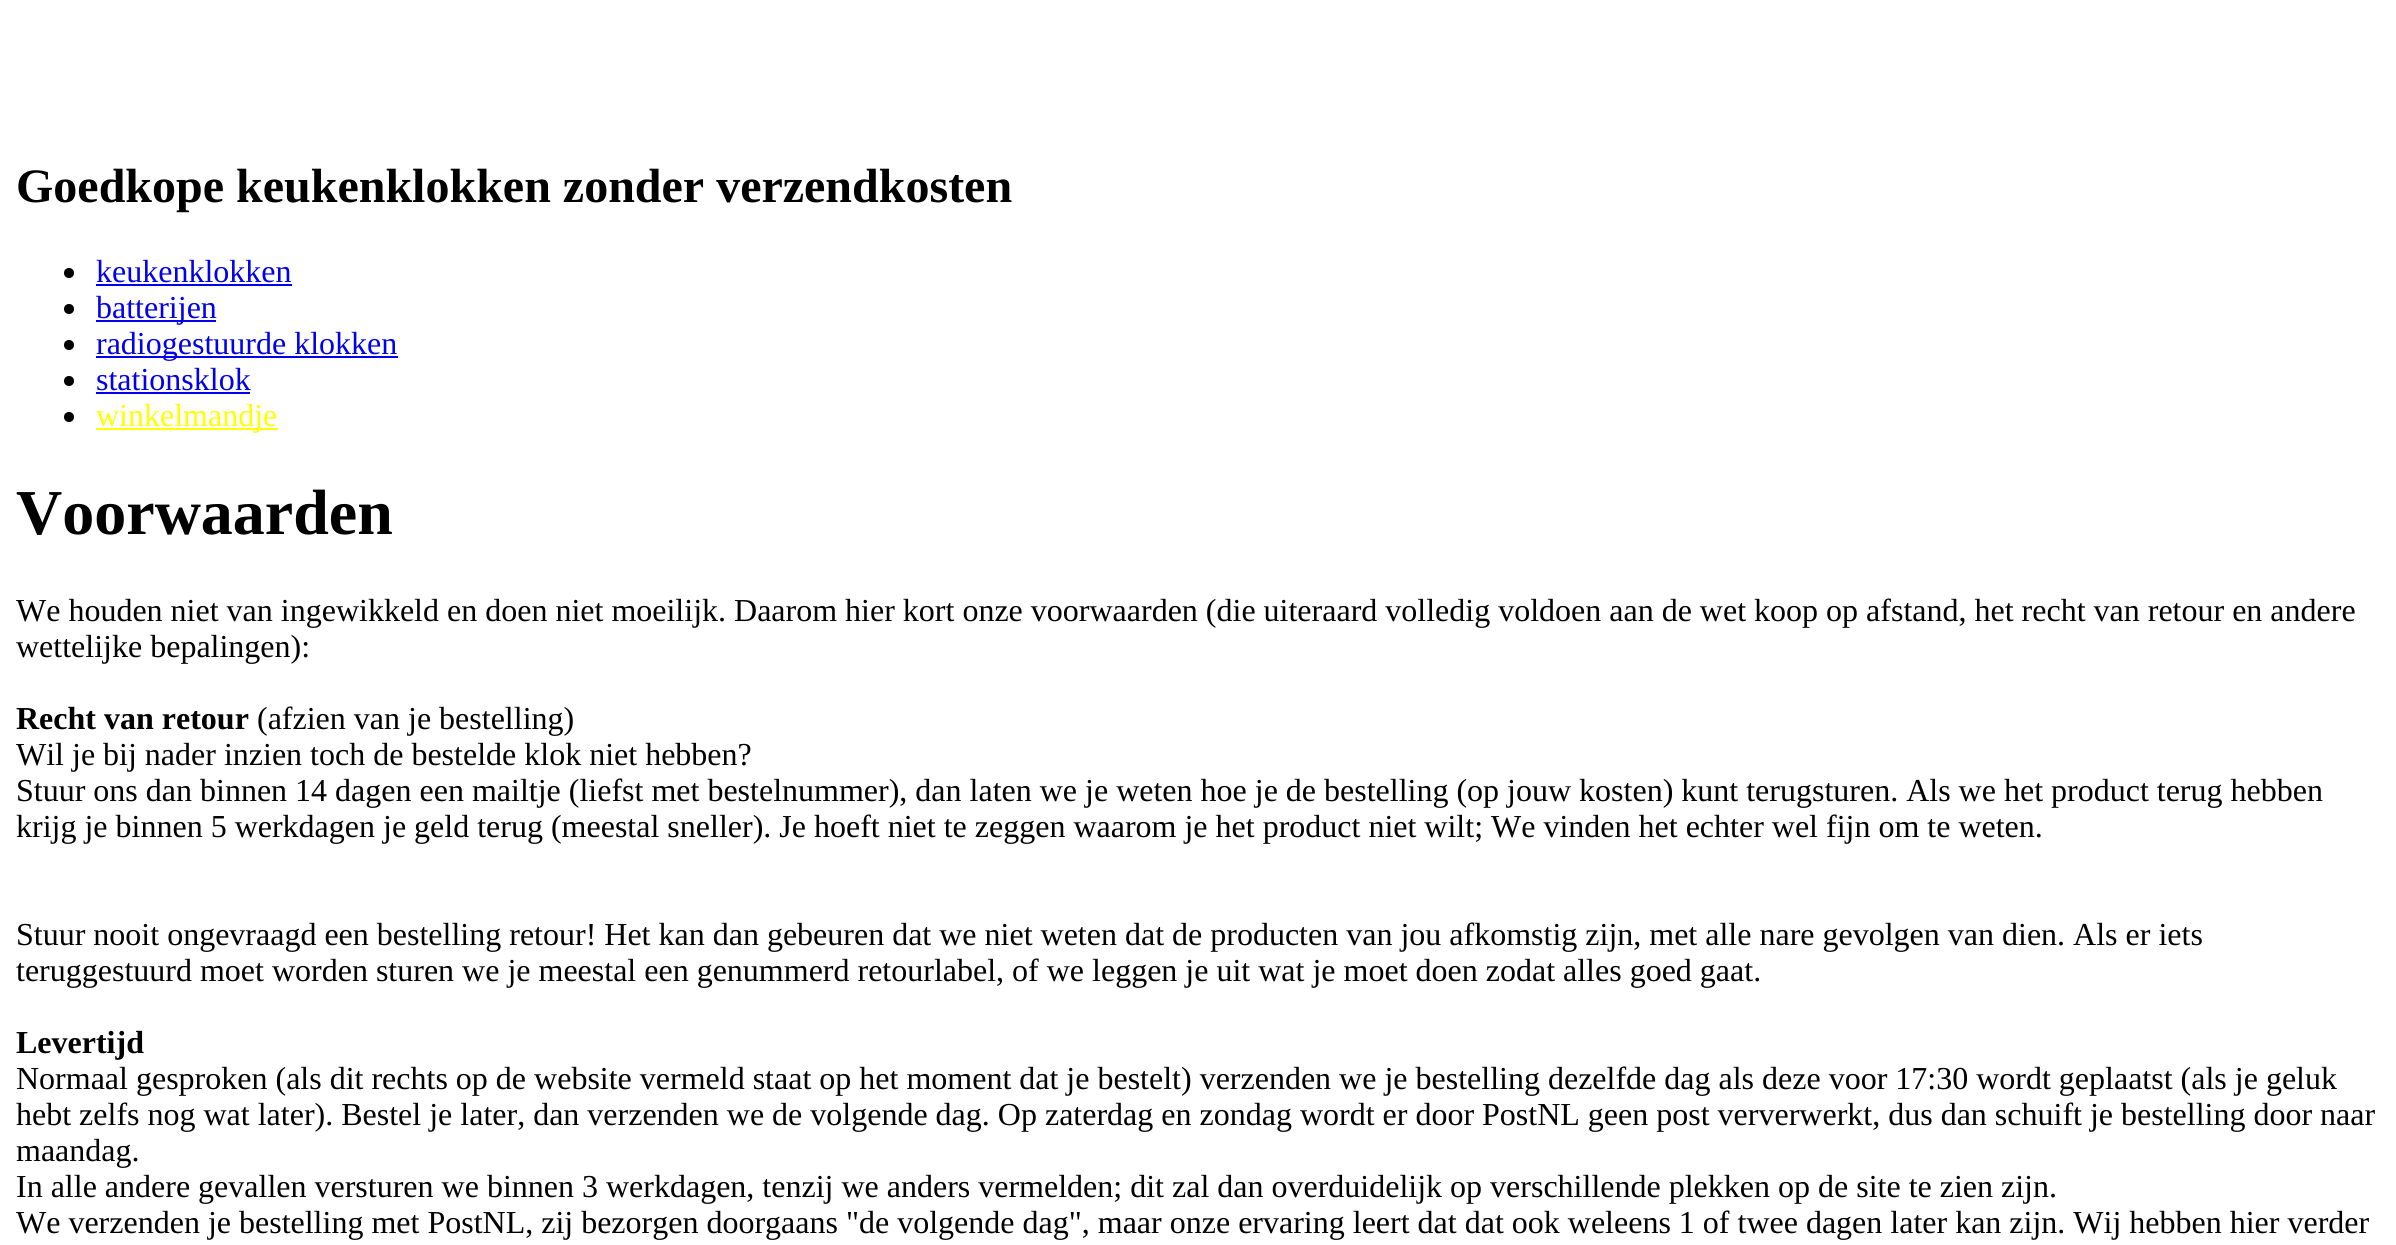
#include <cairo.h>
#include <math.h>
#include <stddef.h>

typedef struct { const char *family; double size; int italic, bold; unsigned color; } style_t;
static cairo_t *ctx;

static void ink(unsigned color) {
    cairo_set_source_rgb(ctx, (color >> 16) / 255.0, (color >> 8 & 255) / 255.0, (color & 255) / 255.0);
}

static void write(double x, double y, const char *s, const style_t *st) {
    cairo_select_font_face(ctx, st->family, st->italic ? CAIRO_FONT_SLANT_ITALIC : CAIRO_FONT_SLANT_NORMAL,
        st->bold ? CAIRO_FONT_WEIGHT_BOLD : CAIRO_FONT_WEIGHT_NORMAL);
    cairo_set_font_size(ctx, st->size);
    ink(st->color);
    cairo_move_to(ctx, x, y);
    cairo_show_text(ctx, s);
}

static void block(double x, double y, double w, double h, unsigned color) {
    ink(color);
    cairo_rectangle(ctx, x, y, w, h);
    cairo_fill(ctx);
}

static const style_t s1 = {"Liberation Serif", 48, 0, 1, 0x000000};
static const style_t s2 = {"Liberation Serif", 32, 0, 0, 0x0000ee};
static const style_t s3 = {"Liberation Serif", 32, 0, 0, 0xffff00};
static const style_t s4 = {"Liberation Serif", 64, 0, 1, 0x000000};
static const style_t s5 = {"Liberation Serif", 32, 0, 0, 0x000000};
static const style_t s6 = {"Liberation Serif", 32, 0, 1, 0x000000};

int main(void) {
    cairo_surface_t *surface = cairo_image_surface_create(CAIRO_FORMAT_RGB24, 2396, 1245);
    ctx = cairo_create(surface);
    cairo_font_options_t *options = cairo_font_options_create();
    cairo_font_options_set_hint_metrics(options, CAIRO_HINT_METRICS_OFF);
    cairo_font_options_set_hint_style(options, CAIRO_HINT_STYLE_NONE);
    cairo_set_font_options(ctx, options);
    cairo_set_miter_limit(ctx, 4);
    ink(0xffffff);
    cairo_paint(ctx);
    write(16, 202, "Goedkope keukenklokken zonder verzendkosten", &s1);
    cairo_new_path(ctx);
    cairo_arc(ctx, 69, 273, 5, 0, 2 * M_PI);
    cairo_fill(ctx);
    write(96, 282, "keukenklokken", &s2);
    block(96, 284, 196, 2, 0x0000ee);
    ink(0x000000);
    cairo_new_path(ctx);
    cairo_arc(ctx, 69, 309, 5, 0, 2 * M_PI);
    cairo_fill(ctx);
    block(96, 320, 120, 2, 0x0000ee);
    write(96, 318, "batterijen", &s2);
    ink(0x000000);
    cairo_new_path(ctx);
    cairo_arc(ctx, 69, 345, 5, 0, 2 * M_PI);
    cairo_fill(ctx);
    block(96, 356, 302, 2, 0x0000ee);
    write(96, 354, "radiogestuurde klokken", &s2);
    ink(0x000000);
    cairo_new_path(ctx);
    cairo_arc(ctx, 69, 381, 5, 0, 2 * M_PI);
    cairo_fill(ctx);
    write(96, 390, "stationsklok", &s2);
    block(96, 392, 154, 2, 0x0000ee);
    ink(0x000000);
    cairo_new_path(ctx);
    cairo_arc(ctx, 69, 417, 5, 0, 2 * M_PI);
    cairo_fill(ctx);
    block(96, 428, 182, 2, 0xffff00);
    write(96, 426, "winkelmandje", &s3);
    write(16, 534, "Voorwaarden", &s4);
    write(16, 621, "We houden niet van ingewikkeld en doen niet moeilijk. Daarom hier kort onze voorwaarden (die uiteraard volledig voldoen aan de wet koop op afstand, het recht van retour en andere", &s5);
    write(16, 657, "wettelijke bepalingen):", &s5);
    write(16, 729, "Recht van retour", &s6);
    write(257, 729, "(afzien van je bestelling)", &s5);
    write(16, 765, "Wil je bij nader inzien toch de bestelde klok niet hebben?", &s5);
    write(16, 801, "Stuur ons dan binnen 14 dagen een mailtje (liefst met bestelnummer), dan laten we je weten hoe je de bestelling (op jouw kosten) kunt terugsturen. Als we het product terug hebben", &s5);
    write(16, 837, "krijg je binnen 5 werkdagen je geld terug (meestal sneller). Je hoeft niet te zeggen waarom je het product niet wilt; We vinden het echter wel fijn om te weten.", &s5);
    write(16, 945, "Stuur nooit ongevraagd een bestelling retour! Het kan dan gebeuren dat we niet weten dat de producten van jou afkomstig zijn, met alle nare gevolgen van dien. Als er iets", &s5);
    write(16, 981, "teruggestuurd moet worden sturen we je meestal een genummerd retourlabel, of we leggen je uit wat je moet doen zodat alles goed gaat.", &s5);
    write(16, 1053, "Levertijd", &s6);
    write(16, 1089, "Normaal gesproken (als dit rechts op de website vermeld staat op het moment dat je bestelt) verzenden we je bestelling dezelfde dag als deze voor 17:30 wordt geplaatst (als je geluk", &s5);
    write(16, 1125, "hebt zelfs nog wat later). Bestel je later, dan verzenden we de volgende dag. Op zaterdag en zondag wordt er door PostNL geen post ververwerkt, dus dan schuift je bestelling door naar", &s5);
    write(16, 1161, "maandag.", &s5);
    write(16, 1197, "In alle andere gevallen versturen we binnen 3 werkdagen, tenzij we anders vermelden; dit zal dan overduidelijk op verschillende plekken op de site te zien zijn.", &s5);
    write(16, 1233, "We verzenden je bestelling met PostNL, zij bezorgen doorgaans \"de volgende dag\", maar onze ervaring leert dat dat ook weleens 1 of twee dagen later kan zijn. Wij hebben hier verder", &s5);
    cairo_surface_write_to_png(surface, "screenshot.png");
    cairo_font_options_destroy(options);
    cairo_destroy(ctx);
    cairo_surface_destroy(surface);
    return 0;
}
